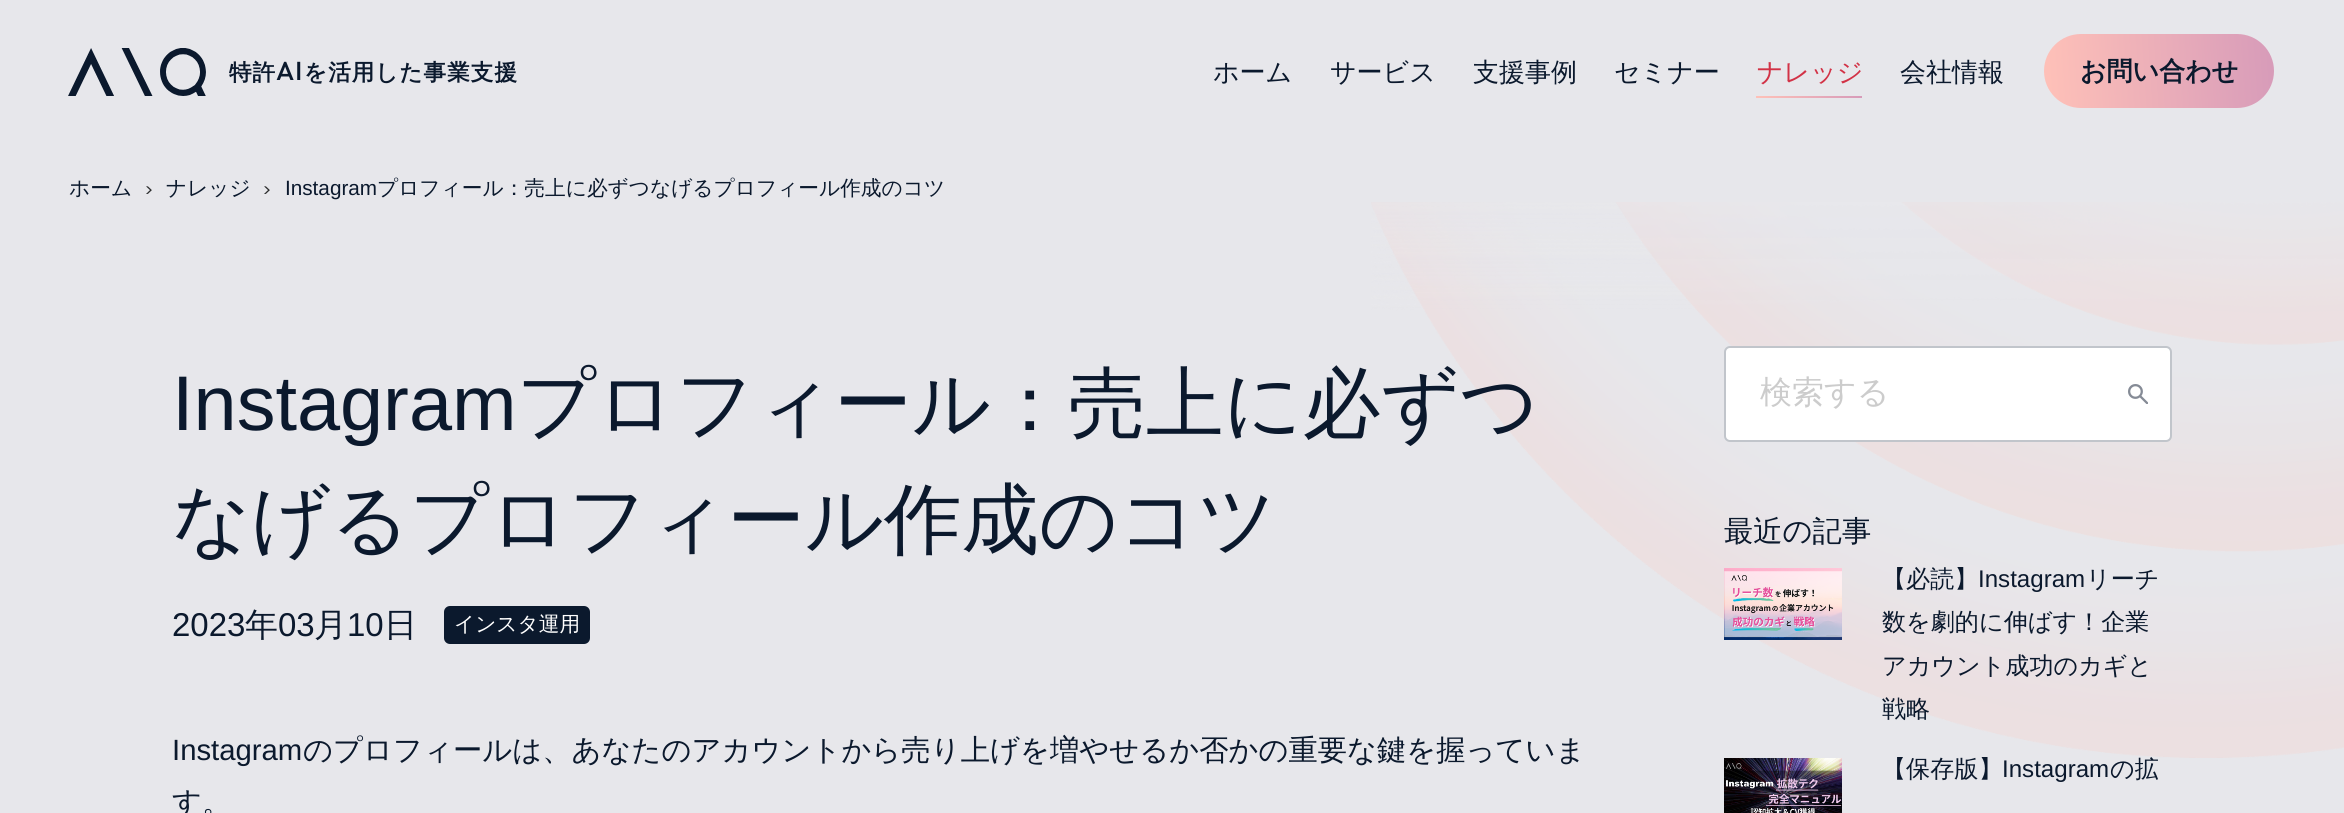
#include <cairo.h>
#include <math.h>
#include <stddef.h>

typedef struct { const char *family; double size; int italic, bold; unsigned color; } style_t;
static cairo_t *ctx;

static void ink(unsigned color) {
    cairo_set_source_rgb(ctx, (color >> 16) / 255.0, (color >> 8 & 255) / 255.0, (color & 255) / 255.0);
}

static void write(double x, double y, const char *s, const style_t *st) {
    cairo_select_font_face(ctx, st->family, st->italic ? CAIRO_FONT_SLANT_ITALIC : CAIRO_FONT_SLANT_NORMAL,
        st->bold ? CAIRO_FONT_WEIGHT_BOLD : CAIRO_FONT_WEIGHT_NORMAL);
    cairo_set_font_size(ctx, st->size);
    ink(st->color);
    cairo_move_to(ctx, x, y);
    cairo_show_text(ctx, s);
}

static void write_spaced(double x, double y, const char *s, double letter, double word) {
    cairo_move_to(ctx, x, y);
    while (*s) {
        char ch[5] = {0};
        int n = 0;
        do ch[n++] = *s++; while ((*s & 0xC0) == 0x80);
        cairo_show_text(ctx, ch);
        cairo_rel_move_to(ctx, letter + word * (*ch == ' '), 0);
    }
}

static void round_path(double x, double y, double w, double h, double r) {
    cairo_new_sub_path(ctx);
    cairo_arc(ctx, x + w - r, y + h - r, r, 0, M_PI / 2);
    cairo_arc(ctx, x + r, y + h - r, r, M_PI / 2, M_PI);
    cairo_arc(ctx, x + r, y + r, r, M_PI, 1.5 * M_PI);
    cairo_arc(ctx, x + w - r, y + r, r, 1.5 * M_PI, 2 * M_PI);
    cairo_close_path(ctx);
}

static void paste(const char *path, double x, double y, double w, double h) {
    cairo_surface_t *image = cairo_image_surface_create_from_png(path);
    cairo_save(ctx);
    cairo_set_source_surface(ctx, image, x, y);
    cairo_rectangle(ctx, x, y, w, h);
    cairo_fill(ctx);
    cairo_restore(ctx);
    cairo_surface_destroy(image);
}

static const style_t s1 = {"WenQuanYi Zen Hei Medium", 26, 0, 0, 0x0b192d};
static const style_t s2 = {"WenQuanYi Zen Hei Medium", 26, 0, 0, 0xd23246};
static const style_t s3 = {"WenQuanYi Zen Hei", 26, 0, 1, 0x0b192d};
static const style_t s4 = {"WenQuanYi Zen Hei Medium", 20.7, 0, 0, 0x0b192d};
static const style_t s5 = {"Liberation Sans", 20.7, 0, 0, 0x0b192d};
static const style_t s6 = {"Liberation Sans", 77.5, 0, 0, 0x0b192d};
static const style_t s7 = {"WenQuanYi Zen Hei Medium", 77.5, 0, 0, 0x0b192d};
static const style_t s8 = {"Liberation Sans", 33, 0, 0, 0x0b192d};
static const style_t s9 = {"WenQuanYi Zen Hei Medium", 33, 0, 0, 0x0b192d};
static const style_t s10 = {"WenQuanYi Zen Hei Medium", 20.7, 0, 0, 0xffffff};
static const style_t s11 = {"Liberation Sans", 29.3, 0, 0, 0x0b192d};
static const style_t s12 = {"WenQuanYi Zen Hei Medium", 29.3, 0, 0, 0x0b192d};
static const style_t s13 = {"WenQuanYi Zen Hei Medium", 32, 0, 0, 0xcccccc};
static const style_t s14 = {"WenQuanYi Zen Hei Medium", 24.1, 0, 0, 0x0b192d};
static const style_t s15 = {"Liberation Sans", 24.1, 0, 0, 0x0b192d};

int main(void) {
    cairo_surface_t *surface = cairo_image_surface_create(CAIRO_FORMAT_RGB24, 2344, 813);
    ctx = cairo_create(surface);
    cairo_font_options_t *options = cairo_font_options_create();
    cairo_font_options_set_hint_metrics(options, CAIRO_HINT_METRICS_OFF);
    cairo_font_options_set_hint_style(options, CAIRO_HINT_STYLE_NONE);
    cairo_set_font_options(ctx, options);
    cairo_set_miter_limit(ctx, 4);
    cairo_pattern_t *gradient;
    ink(0xe7e7eb);
    cairo_paint(ctx);
    paste("pic1.png", 68, 48, 138, 48);
    cairo_select_font_face(ctx, "WenQuanYi Zen Hei", CAIRO_FONT_SLANT_NORMAL, CAIRO_FONT_WEIGHT_BOLD);
    cairo_set_font_size(ctx, 22.5);
    ink(0x0b192d);
    write_spaced(229, 80, "特許", 1.1, 0);
    cairo_select_font_face(ctx, "Outfit Medium", CAIRO_FONT_SLANT_NORMAL, CAIRO_FONT_WEIGHT_NORMAL);
    cairo_set_font_size(ctx, 26);
    write_spaced(276, 80, "AI", 1, 0);
    cairo_select_font_face(ctx, "WenQuanYi Zen Hei", CAIRO_FONT_SLANT_NORMAL, CAIRO_FONT_WEIGHT_BOLD);
    cairo_set_font_size(ctx, 22.5);
    write_spaced(304, 80, "を活用した事業支援", 1.1, 0);
    write(1213, 81, "ホーム", &s1);
    write(1330, 81, "サービス", &s1);
    write(1473, 81, "支援事例", &s1);
    write(1614, 81, "セミナー", &s1);
    write(1757, 81, "ナレッジ", &s2);
    gradient = cairo_pattern_create_linear(1756, 101, 1862, 93);
    cairo_pattern_add_color_stop_rgba(gradient, 0, 1, 0.757, 0.722, 1);
    cairo_pattern_add_color_stop_rgba(gradient, 1, 0.843, 0.608, 0.725, 1);
    cairo_set_source(ctx, gradient);
    cairo_pattern_destroy(gradient);
    cairo_rectangle(ctx, 1756, 96, 106, 2);
    cairo_fill(ctx);
    write(1900, 81, "会社情報", &s1);
    gradient = cairo_pattern_create_linear(2042, 79, 2276, 63);
    cairo_pattern_add_color_stop_rgba(gradient, 0, 1, 0.757, 0.722, 1);
    cairo_pattern_add_color_stop_rgba(gradient, 1, 0.843, 0.608, 0.725, 1);
    cairo_set_source(ctx, gradient);
    cairo_pattern_destroy(gradient);
    round_path(2044, 34, 230, 74, 37);
    cairo_fill(ctx);
    write(2080, 80, "お問い合わせ", &s3);
    paste("pic2.png", 1371, 202, 973, 556);
    write(69, 195, "ホーム", &s4);
    paste("pic3.png", 146, 186, 6, 8);
    write(166, 195, "ナレッジ", &s4);
    paste("pic3.png", 264, 186, 6, 8);
    write(285, 195, "Instagram", &s5);
    write(377, 195, "プロフィール：売上に必ずつなげるプロフィール作成のコツ", &s4);
    write(172, 430, "Instagram", &s6);
    write(517, 430, "プロフィール：売上に必ずつ", &s7);
    write(172, 546, "なげるプロフィール作成のコツ", &s7);
    write(172, 636, "2023", &s8);
    write(245, 636, "年", &s9);
    write(278, 636, "03", &s8);
    write(314, 636, "月", &s9);
    write(347, 636, "10", &s8);
    write(384, 636, "日", &s9);
    round_path(444, 606, 146, 38, 6);
    cairo_fill(ctx);
    write(454, 631, "インスタ運用", &s10);
    write(172, 760, "Instagram", &s11);
    write(303, 760, "のプロフィールは、あなたのアカウントから売り上げを増やせるか否かの重要な鍵を握っていま", &s12);
    write(172, 812, "す。", &s12);
    ink(0xffffff);
    round_path(1725, 347, 446, 94, 5);
    cairo_fill_preserve(ctx);
    ink(0xc1c5cb);
    cairo_stroke(ctx);
    write(1760, 403, "検索する", &s13);
    paste("pic4.png", 2128, 384, 20, 20);
    write(1724, 541, "最近の記事", &s12);
    paste("pic5.png", 1724, 568, 118, 72);
    write(1882, 587, "【必読】", &s14);
    write(1978, 587, "Instagram", &s15);
    write(2086, 587, "リーチ", &s14);
    write(1882, 630, "数を劇的に伸ばす！企業", &s14);
    write(1882, 674, "アカウント成功のカギと", &s14);
    write(1882, 717, "戦略", &s14);
    paste("pic6.png", 1724, 758, 118, 55);
    write(1882, 777, "【保存版】", &s14);
    write(2002, 777, "Instagram", &s15);
    write(2110, 777, "の拡", &s14);
    cairo_surface_write_to_png(surface, "screenshot.png");
    cairo_font_options_destroy(options);
    cairo_destroy(ctx);
    cairo_surface_destroy(surface);
    return 0;
}
